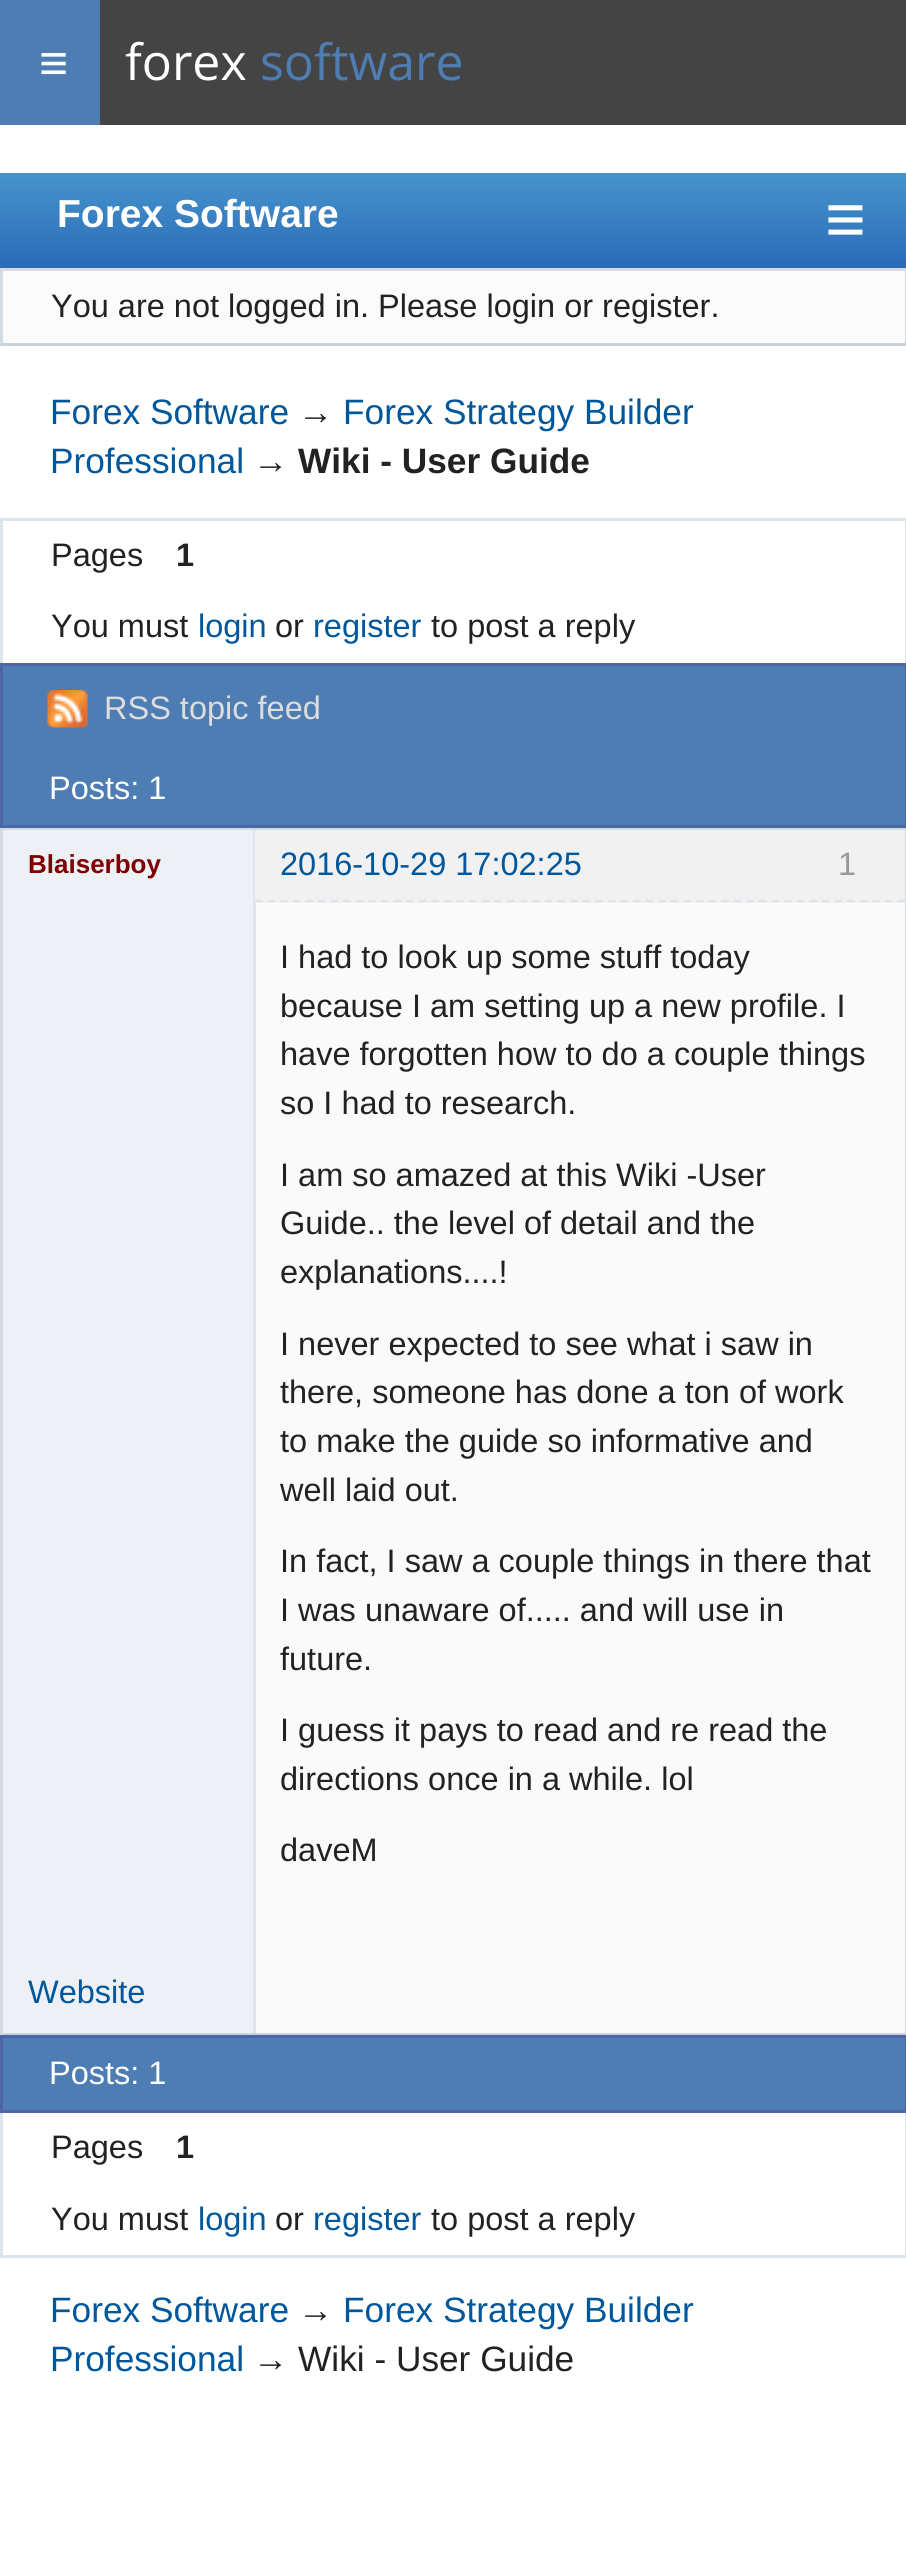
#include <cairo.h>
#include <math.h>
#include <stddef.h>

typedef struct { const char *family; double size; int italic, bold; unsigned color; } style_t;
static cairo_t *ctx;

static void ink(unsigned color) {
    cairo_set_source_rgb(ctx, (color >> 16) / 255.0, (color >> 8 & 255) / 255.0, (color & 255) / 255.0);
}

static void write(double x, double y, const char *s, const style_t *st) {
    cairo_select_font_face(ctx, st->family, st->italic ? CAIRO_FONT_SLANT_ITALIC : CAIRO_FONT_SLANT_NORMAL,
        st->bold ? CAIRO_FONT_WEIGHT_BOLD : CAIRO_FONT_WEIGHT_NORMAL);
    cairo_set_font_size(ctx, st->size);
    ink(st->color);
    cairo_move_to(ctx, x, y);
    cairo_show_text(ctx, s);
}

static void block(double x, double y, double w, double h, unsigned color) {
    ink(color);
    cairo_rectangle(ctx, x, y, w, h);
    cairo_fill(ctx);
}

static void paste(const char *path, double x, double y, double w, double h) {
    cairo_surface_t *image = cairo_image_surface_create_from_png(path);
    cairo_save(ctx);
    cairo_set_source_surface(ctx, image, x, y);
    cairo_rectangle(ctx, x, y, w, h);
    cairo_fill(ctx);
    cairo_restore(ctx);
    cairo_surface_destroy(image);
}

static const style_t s1 = {"Liberation Sans", 50, 0, 0, 0xffffff};
static const style_t s2 = {"Open Sans", 50, 0, 0, 0xffffff};
static const style_t s3 = {"Open Sans", 50, 0, 0, 0x4d7db3};
static const style_t s4 = {"Liberation Sans", 39, 0, 1, 0xffffff};
static const style_t s5 = {"Liberation Sans", 70, 0, 0, 0xffffff};
static const style_t s6 = {"Liberation Sans", 32.5, 0, 0, 0x222222};
static const style_t s7 = {"Liberation Sans", 35.25, 0, 0, 0x00579c};
static const style_t s8 = {"Liberation Sans", 35.25, 0, 0, 0x222222};
static const style_t s9 = {"Liberation Sans", 35.25, 0, 1, 0x222222};
static const style_t s10 = {"Liberation Sans", 32.5, 0, 1, 0x222222};
static const style_t s11 = {"Liberation Sans", 32.5, 0, 0, 0x00579c};
static const style_t s12 = {"Liberation Sans", 32.5, 0, 0, 0xdddddd};
static const style_t s13 = {"Liberation Sans", 32.5, 0, 0, 0xffffff};
static const style_t s14 = {"Liberation Sans", 26, 0, 1, 0x800000};
static const style_t s15 = {"Liberation Sans", 32.5, 0, 0, 0x999999};

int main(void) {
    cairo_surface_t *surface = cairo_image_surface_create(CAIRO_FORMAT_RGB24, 906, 2567);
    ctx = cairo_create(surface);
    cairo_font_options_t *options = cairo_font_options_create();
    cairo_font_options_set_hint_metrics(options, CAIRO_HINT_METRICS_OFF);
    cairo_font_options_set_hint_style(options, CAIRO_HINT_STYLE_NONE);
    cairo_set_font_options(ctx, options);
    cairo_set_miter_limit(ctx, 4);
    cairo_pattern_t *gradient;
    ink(0xffffff);
    cairo_paint(ctx);
    block(100, 0, 806, 125, 0x444444);
    block(0, 0, 100, 125, 0x4d7db3);
    write(39, 80, "≡", &s1);
    write(125, 80, "forex", &s2);
    write(260, 80, "software", &s3);
    gradient = cairo_pattern_create_linear(454, 268, 454, 173);
    cairo_pattern_add_color_stop_rgba(gradient, 0, 0.165, 0.416, 0.722, 1);
    cairo_pattern_add_color_stop_rgba(gradient, 1, 0.278, 0.584, 0.8, 1);
    cairo_set_source(ctx, gradient);
    cairo_pattern_destroy(gradient);
    cairo_rectangle(ctx, 0, 173, 906, 95);
    cairo_fill(ctx);
    write(57, 227, "Forex Software", &s4);
    write(825, 243, "≡", &s5);
    block(3, 271, 902, 72, 0xfbfbfb);
    block(0, 268, 906, 3, 0xd3dae1);
    block(905, 268, 1, 77, 0xd3dae1);
    block(0, 343, 906, 3, 0xcbd1d8);
    block(0, 268, 3, 77, 0xd3dae1);
    write(51, 317, "You are not logged in. Please login or register.", &s6);
    write(50, 424, "Forex Software", &s7);
    write(298, 424, "→", &s8);
    write(343, 424, "Forex Strategy Builder", &s7);
    write(50, 473, "Professional", &s7);
    write(253, 473, "→", &s8);
    write(298, 473, "Wiki - User Guide", &s9);
    block(0, 518, 906, 3, 0xdde4eb);
    block(905, 518, 1, 145, 0xdde4eb);
    block(0, 518, 3, 145, 0xdde4eb);
    write(51, 566, "Pages", &s6);
    write(176, 566, "1", &s10);
    write(51, 637, "You must", &s6);
    write(198, 637, "login", &s11);
    write(275, 637, "or", &s6);
    write(313, 637, "register", &s11);
    write(431, 637, "to post a reply", &s6);
    ink(0x4d7db3);
    cairo_rectangle(ctx, 1.5, 664.5, 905, 162);
    cairo_fill_preserve(ctx);
    ink(0x4c66a4);
    cairo_set_line_width(ctx, 3);
    cairo_stroke(ctx);
    paste("pic1.png", 47, 690, 41, 38);
    write(104, 719, "RSS topic feed", &s12);
    write(49, 799, "Posts: 1", &s13);
    block(0, 828, 906, 2, 0xd3dae1);
    block(905, 828, 1, 1207, 0xd3dae1);
    block(0, 2033, 906, 2, 0xcbd1d8);
    block(0, 828, 3, 1207, 0xd3dae1);
    block(3, 830, 250, 1203, 0xedf1f5);
    block(256, 903, 649, 1130, 0xfafafa);
    block(253, 830, 3, 1203, 0xdde4eb);
    block(255, 830, 650, 73, 0xf1f1f1);
    cairo_new_path(ctx);
    cairo_move_to(ctx, 255, 901);
    cairo_line_to(ctx, 905, 901);
    ink(0xdde4eb);
    cairo_set_line_width(ctx, 2.5);
    cairo_set_dash(ctx, (double[]){7.5, 5.1}, 2, 0);
    cairo_stroke(ctx);
    write(28, 873, "Blaiserboy", &s14);
    write(280, 875, "2016-10-29 17:02:25", &s11);
    write(838, 875, "1", &s15);
    write(280, 968, "I had to look up some stuff today", &s6);
    write(280, 1017, "because I am setting up a new profile. I", &s6);
    write(280, 1065, "have forgotten how to do a couple things", &s6);
    write(280, 1114, "so I had to research.", &s6);
    write(280, 1186, "I am so amazed at this Wiki -User", &s6);
    write(280, 1234, "Guide.. the level of detail and the", &s6);
    write(280, 1283, "explanations....!", &s6);
    write(280, 1355, "I never expected to see what i saw in", &s6);
    write(280, 1403, "there, someone has done a ton of work", &s6);
    write(280, 1452, "to make the guide so informative and", &s6);
    write(280, 1501, "well laid out.", &s6);
    write(280, 1572, "In fact, I saw a couple things in there that", &s6);
    write(280, 1621, "I was unaware of..... and will use in", &s6);
    write(280, 1670, "future.", &s6);
    write(280, 1741, "I guess it pays to read and re read the", &s6);
    write(280, 1790, "directions once in a while. lol", &s6);
    write(280, 1861, "daveM", &s6);
    write(28, 2003, "Website", &s11);
    ink(0x4d7db3);
    cairo_rectangle(ctx, 1.5, 2036.5, 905, 75);
    cairo_fill_preserve(ctx);
    ink(0x4c66a4);
    cairo_set_line_width(ctx, 3);
    cairo_set_dash(ctx, NULL, 0, 0);
    cairo_stroke(ctx);
    write(49, 2084, "Posts: 1", &s13);
    block(905, 2113, 1, 145, 0xdde4eb);
    block(0, 2255, 906, 3, 0xdde4eb);
    block(0, 2113, 3, 145, 0xdde4eb);
    write(51, 2158, "Pages", &s6);
    write(176, 2158, "1", &s10);
    write(51, 2230, "You must", &s6);
    write(198, 2230, "login", &s11);
    write(275, 2230, "or", &s6);
    write(313, 2230, "register", &s11);
    write(431, 2230, "to post a reply", &s6);
    write(50, 2322, "Forex Software", &s7);
    write(298, 2322, "→", &s8);
    write(343, 2322, "Forex Strategy Builder", &s7);
    write(50, 2371, "Professional", &s7);
    write(253, 2371, "→ Wiki - User Guide", &s8);
    cairo_surface_write_to_png(surface, "screenshot.png");
    cairo_font_options_destroy(options);
    cairo_destroy(ctx);
    cairo_surface_destroy(surface);
    return 0;
}
